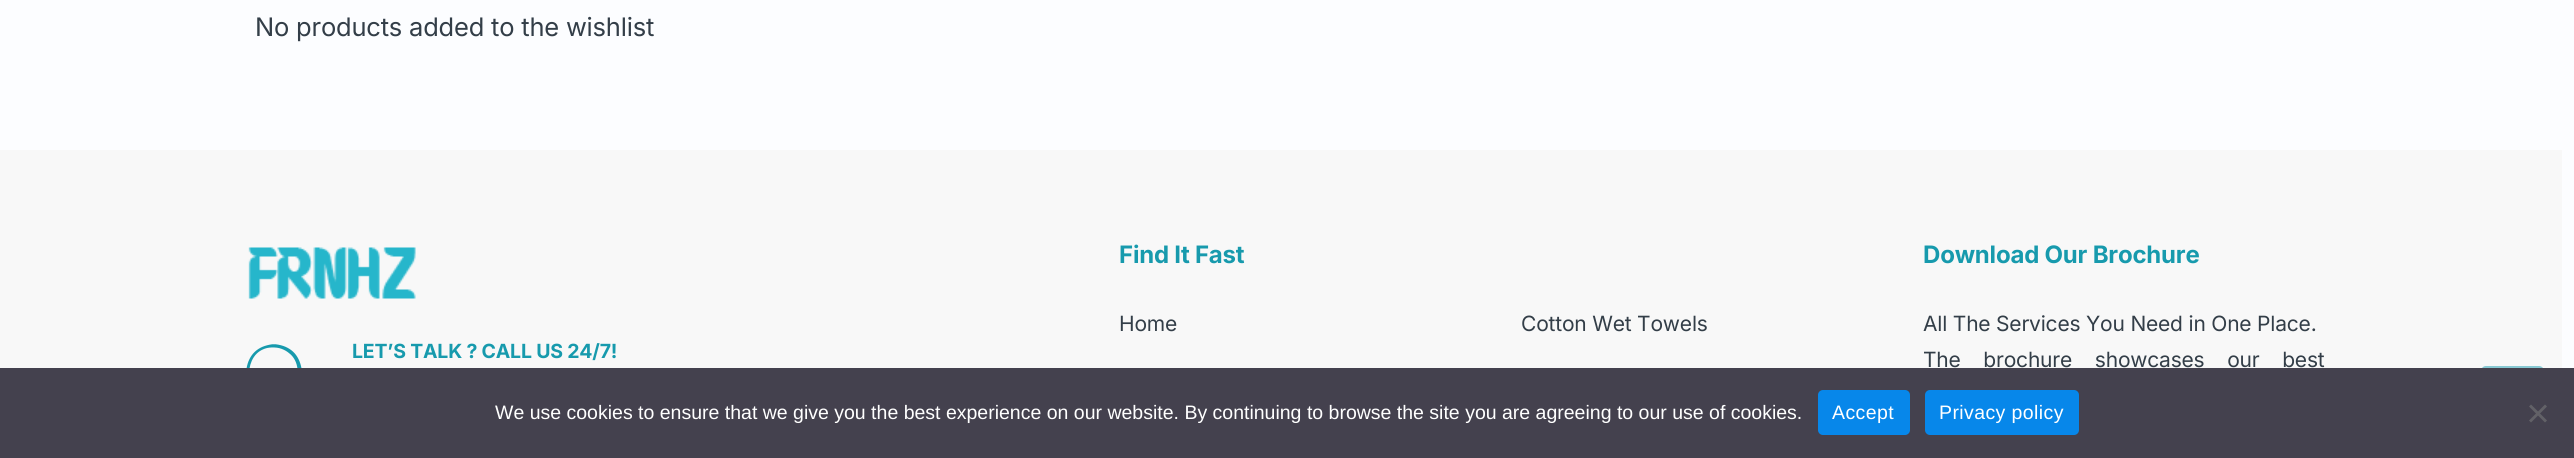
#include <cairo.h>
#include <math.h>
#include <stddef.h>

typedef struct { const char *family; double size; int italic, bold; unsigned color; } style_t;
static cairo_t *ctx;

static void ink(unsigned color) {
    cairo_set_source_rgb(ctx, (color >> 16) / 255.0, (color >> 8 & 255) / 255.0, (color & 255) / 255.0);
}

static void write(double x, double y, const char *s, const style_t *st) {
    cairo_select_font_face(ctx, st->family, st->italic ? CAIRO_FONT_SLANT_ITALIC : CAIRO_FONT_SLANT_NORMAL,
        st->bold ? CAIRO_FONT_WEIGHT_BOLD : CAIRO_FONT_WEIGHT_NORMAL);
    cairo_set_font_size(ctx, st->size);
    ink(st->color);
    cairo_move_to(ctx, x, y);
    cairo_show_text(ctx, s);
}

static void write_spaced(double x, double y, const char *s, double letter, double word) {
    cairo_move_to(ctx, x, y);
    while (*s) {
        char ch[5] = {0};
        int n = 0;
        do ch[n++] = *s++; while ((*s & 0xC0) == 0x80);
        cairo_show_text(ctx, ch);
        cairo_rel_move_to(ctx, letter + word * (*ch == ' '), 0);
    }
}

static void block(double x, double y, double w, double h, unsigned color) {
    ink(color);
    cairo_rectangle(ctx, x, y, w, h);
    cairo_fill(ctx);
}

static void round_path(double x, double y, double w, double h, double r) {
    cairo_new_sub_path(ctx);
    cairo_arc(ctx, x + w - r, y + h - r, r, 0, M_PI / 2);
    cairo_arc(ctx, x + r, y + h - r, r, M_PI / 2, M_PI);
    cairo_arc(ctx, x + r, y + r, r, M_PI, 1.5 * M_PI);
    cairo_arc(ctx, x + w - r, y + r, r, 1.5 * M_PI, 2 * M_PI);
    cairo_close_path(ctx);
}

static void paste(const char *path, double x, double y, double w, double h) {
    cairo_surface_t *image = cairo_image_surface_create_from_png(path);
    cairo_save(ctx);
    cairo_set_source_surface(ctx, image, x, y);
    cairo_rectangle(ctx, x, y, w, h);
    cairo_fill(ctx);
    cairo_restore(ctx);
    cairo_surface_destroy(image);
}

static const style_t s1 = {"Liberation Sans", 19.5, 0, 0, 0xffffff};

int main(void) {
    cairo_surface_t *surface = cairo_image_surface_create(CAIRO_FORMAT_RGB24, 2574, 458);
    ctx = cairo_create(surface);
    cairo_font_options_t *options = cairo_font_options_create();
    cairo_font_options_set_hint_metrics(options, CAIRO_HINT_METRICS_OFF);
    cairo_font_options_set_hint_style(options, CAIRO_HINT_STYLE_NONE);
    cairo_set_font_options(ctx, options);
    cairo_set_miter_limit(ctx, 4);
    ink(0xfcfdff);
    cairo_paint(ctx);
    cairo_select_font_face(ctx, "Inter", CAIRO_FONT_SLANT_NORMAL, CAIRO_FONT_WEIGHT_NORMAL);
    cairo_set_font_size(ctx, 25.5);
    ink(0x333e48);
    write_spaced(255, 36, "No products added to the wishlist", -0.2, 0);
    block(0, 150, 2562, 218, 0xf8f8f8);
    paste("pic1.png", 248, 247, 168, 52);
    paste("pic2.png", 246, 344, 56, 24);
    cairo_select_font_face(ctx, "Inter", CAIRO_FONT_SLANT_NORMAL, CAIRO_FONT_WEIGHT_BOLD);
    cairo_set_font_size(ctx, 19.5);
    ink(0x179aad);
    write_spaced(352, 358, "LET’S TALK ? CALL US 24/7!", -0.2, 0);
    cairo_set_font_size(ctx, 24);
    write_spaced(1119, 263, "Find It Fast", -0.2, 0);
    cairo_select_font_face(ctx, "Inter", CAIRO_FONT_SLANT_NORMAL, CAIRO_FONT_WEIGHT_NORMAL);
    cairo_set_font_size(ctx, 21);
    ink(0x333e48);
    write_spaced(1119, 331, "Home", -0.2, 0);
    write_spaced(1521, 331, "Cotton Wet Towels", -0.2, 0);
    cairo_select_font_face(ctx, "Inter", CAIRO_FONT_SLANT_NORMAL, CAIRO_FONT_WEIGHT_BOLD);
    cairo_set_font_size(ctx, 24);
    ink(0x179aad);
    write_spaced(1923, 263, "Download Our Brochure", -0.2, 0);
    cairo_select_font_face(ctx, "Inter", CAIRO_FONT_SLANT_NORMAL, CAIRO_FONT_WEIGHT_NORMAL);
    cairo_set_font_size(ctx, 21);
    ink(0x333e48);
    write_spaced(1923, 331, "All The Services You Need in One Place.", -0.2, 0);
    write_spaced(1923, 367, "The brochure showcases our best", -0.2, 17);
    ink(0x88c9d3);
    round_path(2481, 366, 63, 63, 5);
    cairo_fill(ctx);
    block(0, 368, 2574, 90, 0x44414e);
    write(495, 419, "We use cookies to ensure that we give you the best experience on our website. By continuing to browse the site you are agreeing to our use of cookies.", &s1);
    ink(0x0787ea);
    round_path(1818, 390, 92, 45, 5);
    cairo_fill(ctx);
    ink(0xffffff);
    write_spaced(1832, 419, "Accept", 0.4, 0);
    ink(0x0787ea);
    round_path(1925, 390, 154, 45, 5);
    cairo_fill(ctx);
    ink(0xffffff);
    write_spaced(1939, 419, "Privacy policy", 0.4, 0);
    ink(0x626167);
    cairo_new_path(ctx);
    cairo_move_to(ctx, 2545, 404.5);
    cairo_line_to(ctx, 2547, 406.5);
    cairo_line_to(ctx, 2531, 422.5);
    cairo_line_to(ctx, 2529, 420.5);
    cairo_close_path(ctx);
    cairo_fill(ctx);
    cairo_new_path(ctx);
    cairo_move_to(ctx, 2529, 406.5);
    cairo_line_to(ctx, 2531, 404.5);
    cairo_line_to(ctx, 2547, 420.5);
    cairo_line_to(ctx, 2545, 422.5);
    cairo_close_path(ctx);
    cairo_fill(ctx);
    cairo_surface_write_to_png(surface, "screenshot.png");
    cairo_font_options_destroy(options);
    cairo_destroy(ctx);
    cairo_surface_destroy(surface);
    return 0;
}
